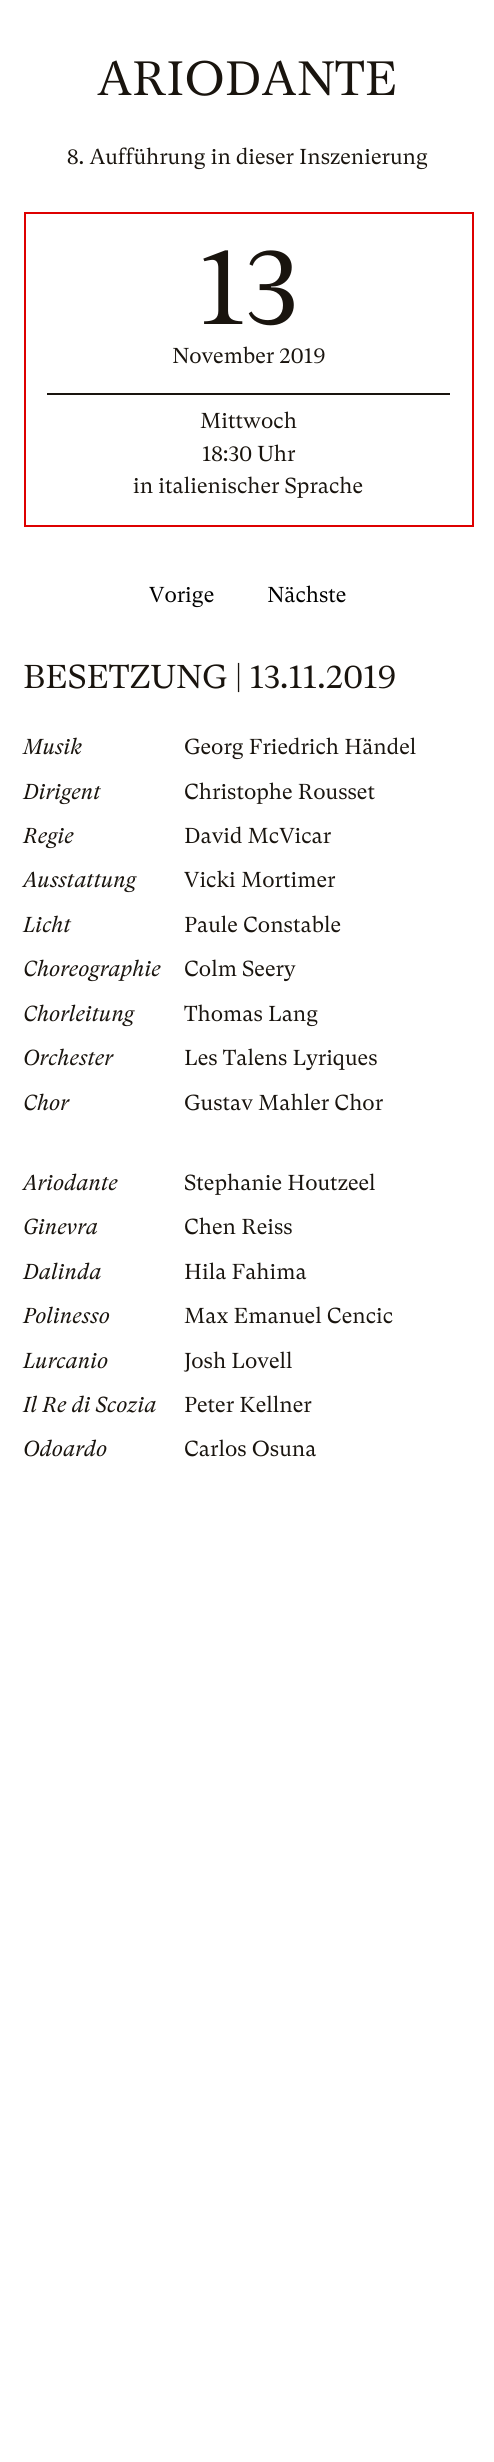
#include <cairo.h>
#include <math.h>
#include <stddef.h>

typedef struct { const char *family; double size; int italic, bold; unsigned color; } style_t;
static cairo_t *ctx;

static void ink(unsigned color) {
    cairo_set_source_rgb(ctx, (color >> 16) / 255.0, (color >> 8 & 255) / 255.0, (color & 255) / 255.0);
}

static void write(double x, double y, const char *s, const style_t *st) {
    cairo_select_font_face(ctx, st->family, st->italic ? CAIRO_FONT_SLANT_ITALIC : CAIRO_FONT_SLANT_NORMAL,
        st->bold ? CAIRO_FONT_WEIGHT_BOLD : CAIRO_FONT_WEIGHT_NORMAL);
    cairo_set_font_size(ctx, st->size);
    ink(st->color);
    cairo_move_to(ctx, x, y);
    cairo_show_text(ctx, s);
}

static void block(double x, double y, double w, double h, unsigned color) {
    ink(color);
    cairo_rectangle(ctx, x, y, w, h);
    cairo_fill(ctx);
}

static const style_t s1 = {"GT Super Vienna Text", 48, 0, 0, 0x19140e};
static const style_t s2 = {"GT Super Vienna Text", 21.6, 0, 0, 0x19140e};
static const style_t s3 = {"GT Super Vienna Text", 108, 0, 0, 0x19140e};
static const style_t s4 = {"GT Super Vienna Text", 21.6, 0, 0, 0x000000};
static const style_t s5 = {"GT Super Vienna Text", 33, 0, 0, 0x19140e};
static const style_t s6 = {"GT Super Vienna Text", 21.6, 1, 0, 0x19140e};

int main(void) {
    cairo_surface_t *surface = cairo_image_surface_create(CAIRO_FORMAT_RGB24, 494, 2462);
    ctx = cairo_create(surface);
    cairo_font_options_t *options = cairo_font_options_create();
    cairo_font_options_set_hint_metrics(options, CAIRO_HINT_METRICS_OFF);
    cairo_font_options_set_hint_style(options, CAIRO_HINT_STYLE_NONE);
    cairo_set_font_options(ctx, options);
    cairo_set_miter_limit(ctx, 4);
    ink(0xffffff);
    cairo_paint(ctx);
    write(97, 95, "ARIODANTE", &s1);
    write(67, 164, "8. Aufführung in dieser Inszenierung", &s2);
    cairo_rectangle(ctx, 25, 213, 448, 313);
    ink(0xde0000);
    cairo_stroke(ctx);
    write(199, 324, "13", &s3);
    block(47, 393, 403, 2, 0x19140e);
    write(172, 363, "November 2019", &s2);
    write(200, 428, "Mittwoch", &s2);
    write(202, 461, "18:30 Uhr", &s2);
    write(133, 493, "in italienischer Sprache", &s2);
    write(149, 602, "Vorige", &s4);
    write(267, 602, "Nächste", &s4);
    write(23, 688, "BESETZUNG | 13.11.2019", &s5);
    write(23, 754, "Musik", &s6);
    write(184, 754, "Georg Friedrich Händel", &s2);
    write(23, 799, "Dirigent", &s6);
    write(184, 799, "Christophe Rousset", &s2);
    write(23, 843, "Regie", &s6);
    write(184, 843, "David McVicar", &s2);
    write(23, 887, "Ausstattung", &s6);
    write(184, 887, "Vicki Mortimer", &s2);
    write(23, 932, "Licht", &s6);
    write(184, 932, "Paule Constable", &s2);
    write(23, 976, "Choreographie", &s6);
    write(184, 976, "Colm Seery", &s2);
    write(23, 1021, "Chorleitung", &s6);
    write(184, 1021, "Thomas Lang", &s2);
    write(23, 1065, "Orchester", &s6);
    write(184, 1065, "Les Talens Lyriques", &s2);
    write(23, 1110, "Chor", &s6);
    write(184, 1110, "Gustav Mahler Chor", &s2);
    write(23, 1190, "Ariodante", &s6);
    write(184, 1190, "Stephanie Houtzeel", &s2);
    write(23, 1234, "Ginevra", &s6);
    write(184, 1234, "Chen Reiss", &s2);
    write(23, 1279, "Dalinda", &s6);
    write(184, 1279, "Hila Fahima", &s2);
    write(23, 1323, "Polinesso", &s6);
    write(184, 1323, "Max Emanuel Cencic", &s2);
    write(23, 1368, "Lurcanio", &s6);
    write(184, 1368, "Josh Lovell", &s2);
    write(23, 1412, "Il Re di Scozia", &s6);
    write(184, 1412, "Peter Kellner", &s2);
    write(23, 1456, "Odoardo", &s6);
    write(184, 1456, "Carlos Osuna", &s2);
    cairo_surface_write_to_png(surface, "screenshot.png");
    cairo_font_options_destroy(options);
    cairo_destroy(ctx);
    cairo_surface_destroy(surface);
    return 0;
}
